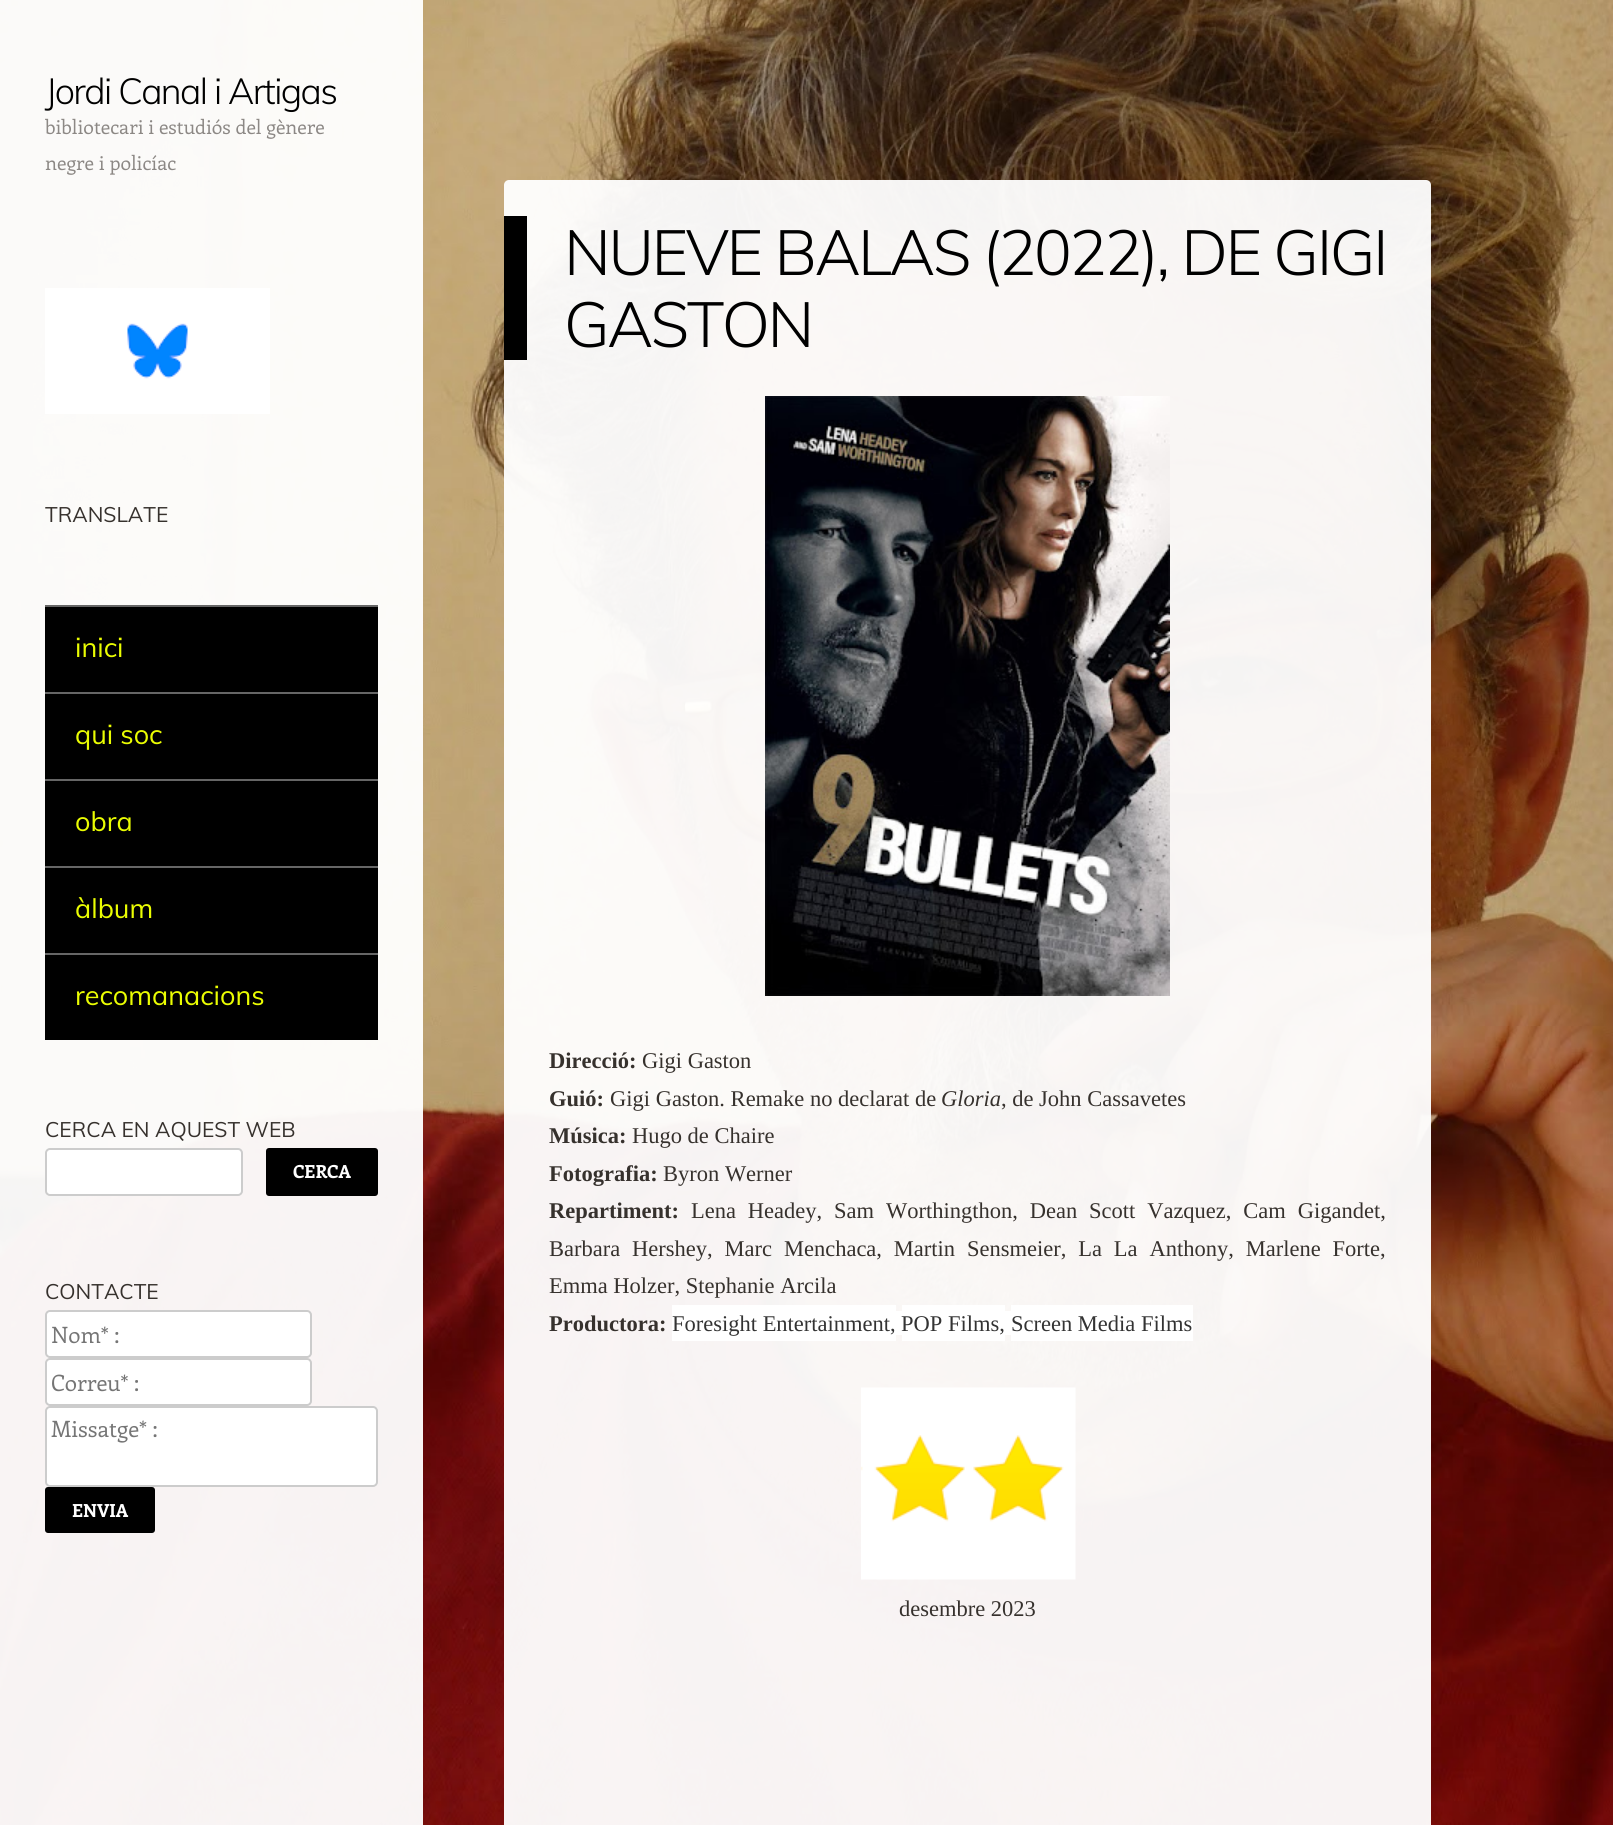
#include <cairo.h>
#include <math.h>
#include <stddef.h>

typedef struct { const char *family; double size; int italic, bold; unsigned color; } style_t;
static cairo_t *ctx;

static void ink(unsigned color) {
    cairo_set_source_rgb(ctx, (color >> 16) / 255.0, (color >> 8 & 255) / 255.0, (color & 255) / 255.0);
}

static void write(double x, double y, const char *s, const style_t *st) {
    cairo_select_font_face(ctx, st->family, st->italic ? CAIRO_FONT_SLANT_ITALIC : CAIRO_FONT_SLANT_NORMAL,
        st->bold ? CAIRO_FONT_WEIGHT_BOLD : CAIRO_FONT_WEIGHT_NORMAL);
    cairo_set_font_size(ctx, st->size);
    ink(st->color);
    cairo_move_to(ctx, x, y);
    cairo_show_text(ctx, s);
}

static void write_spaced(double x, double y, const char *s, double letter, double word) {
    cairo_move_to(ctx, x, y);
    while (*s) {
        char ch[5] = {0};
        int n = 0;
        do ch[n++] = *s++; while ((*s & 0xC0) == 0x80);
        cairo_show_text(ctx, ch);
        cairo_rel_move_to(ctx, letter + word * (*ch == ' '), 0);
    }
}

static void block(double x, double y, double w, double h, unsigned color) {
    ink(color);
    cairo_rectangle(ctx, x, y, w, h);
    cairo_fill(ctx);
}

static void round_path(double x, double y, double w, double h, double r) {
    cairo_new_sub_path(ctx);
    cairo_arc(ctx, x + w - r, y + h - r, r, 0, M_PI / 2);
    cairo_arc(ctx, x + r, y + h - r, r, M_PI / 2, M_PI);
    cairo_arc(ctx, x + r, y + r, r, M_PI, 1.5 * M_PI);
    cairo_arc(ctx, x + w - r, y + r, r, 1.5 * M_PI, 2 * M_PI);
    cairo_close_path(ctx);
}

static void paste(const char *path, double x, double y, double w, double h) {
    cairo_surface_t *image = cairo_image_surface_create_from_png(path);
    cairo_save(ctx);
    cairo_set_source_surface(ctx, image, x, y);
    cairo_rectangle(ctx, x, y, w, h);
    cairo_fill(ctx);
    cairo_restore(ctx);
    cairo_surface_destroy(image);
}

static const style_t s1 = {"Enriqueta", 19.5, 0, 0, 0x8c8885};
static const style_t s2 = {"Muli", 21, 0, 0, 0x36312d};
static const style_t s3 = {"Muli", 27, 0, 0, 0xeafd02};
static const style_t s4 = {"Enriqueta", 18, 0, 1, 0xffffff};
static const style_t s5 = {"Enriqueta", 22.5, 0, 0, 0x757575};
static const style_t s6 = {"Liberation Serif", 22.5, 0, 1, 0x36312d};
static const style_t s7 = {"Liberation Serif", 22.5, 0, 0, 0x36312d};
static const style_t s8 = {"Liberation Serif", 22.5, 1, 0, 0x36312d};
static const style_t s9 = {"Liberation Serif", 22.5, 0, 0, 0x333333};

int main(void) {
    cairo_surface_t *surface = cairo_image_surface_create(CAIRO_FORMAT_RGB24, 1613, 1825);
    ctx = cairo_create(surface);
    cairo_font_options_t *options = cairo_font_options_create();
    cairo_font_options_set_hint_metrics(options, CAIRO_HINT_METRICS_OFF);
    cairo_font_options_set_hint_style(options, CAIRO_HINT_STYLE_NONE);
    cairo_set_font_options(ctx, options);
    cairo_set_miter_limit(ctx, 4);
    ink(0xffffff);
    cairo_paint(ctx);
    paste("pic1.png", 0, 0, 1613, 1825);
    cairo_set_source_rgba(ctx, 1, 1, 1, 0.95);
    cairo_rectangle(ctx, 0, 0, 423, 1825);
    cairo_fill(ctx);
    cairo_select_font_face(ctx, "Muli Light", CAIRO_FONT_SLANT_NORMAL, CAIRO_FONT_WEIGHT_NORMAL);
    cairo_set_font_size(ctx, 36);
    ink(0x000000);
    write_spaced(45, 104, "Jordi Canal i Artigas", -1.6, 0);
    write(45, 134, "bibliotecari i estudiós del gènere", &s1);
    write(45, 170, "negre i policíac", &s1);
    paste("pic2.png", 45, 288, 225, 126);
    write(45, 522, "TRANSLATE", &s2);
    block(45, 607, 333, 85, 0x000000);
    block(45, 605, 333, 2, 0x666666);
    write(75, 657, "inici", &s3);
    block(45, 694, 333, 85, 0x000000);
    block(45, 692, 333, 2, 0x666666);
    write(75, 744, "qui soc", &s3);
    block(45, 781, 333, 85, 0x000000);
    block(45, 779, 333, 2, 0x666666);
    write(75, 831, "obra", &s3);
    block(45, 868, 333, 85, 0x000000);
    block(45, 866, 333, 2, 0x666666);
    write(75, 918, "àlbum", &s3);
    block(45, 955, 333, 85, 0x000000);
    block(45, 953, 333, 2, 0x666666);
    write(75, 1005, "recomanacions", &s3);
    write(45, 1137, "CERCA EN AQUEST WEB", &s2);
    ink(0xffffff);
    round_path(45, 1148, 198, 48, 5);
    cairo_fill(ctx);
    round_path(46, 1149, 196, 46, 4);
    cairo_set_source_rgba(ctx, 0, 0, 0, 0.2);
    cairo_stroke(ctx);
    ink(0x000000);
    round_path(266, 1148, 112, 48, 3);
    cairo_fill(ctx);
    write(293, 1178, "CERCA", &s4);
    write(45, 1299, "CONTACTE", &s2);
    ink(0xffffff);
    round_path(45, 1310, 267, 48, 5);
    cairo_fill(ctx);
    round_path(46, 1311, 265, 46, 4);
    cairo_set_source_rgba(ctx, 0, 0, 0, 0.2);
    cairo_stroke(ctx);
    write(51, 1343, "Nom* :", &s5);
    ink(0xffffff);
    round_path(45, 1358, 267, 48, 5);
    cairo_fill(ctx);
    round_path(46, 1359, 265, 46, 4);
    cairo_set_source_rgba(ctx, 0, 0, 0, 0.2);
    cairo_stroke(ctx);
    write(51, 1391, "Correu* :", &s5);
    ink(0xffffff);
    round_path(45, 1406, 333, 81, 5);
    cairo_fill(ctx);
    round_path(46, 1407, 331, 79, 4);
    cairo_set_source_rgba(ctx, 0, 0, 0, 0.2);
    cairo_stroke(ctx);
    write(51, 1437, "Missatge* :", &s5);
    ink(0x000000);
    round_path(45, 1487, 110, 46, 3);
    cairo_fill(ctx);
    write(72, 1517, "ENVIA", &s4);
    cairo_set_source_rgba(ctx, 1, 1, 1, 0.95);
    round_path(504, 180, 927, 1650, 5);
    cairo_fill(ctx);
    block(504, 216, 23, 144, 0x000000);
    cairo_select_font_face(ctx, "Muli Light", CAIRO_FONT_SLANT_NORMAL, CAIRO_FONT_WEIGHT_NORMAL);
    cairo_set_font_size(ctx, 63);
    write_spaced(564, 275, "NUEVE BALAS (2022), DE GIGI", -2.5, 0);
    write_spaced(564, 347, "GASTON", -2.5, 0);
    paste("pic3.png", 765, 396, 405, 600);
    write(549, 1068, "Direcció:", &s6);
    write(642, 1068, "Gigi Gaston", &s7);
    write(549, 1106, "Guió:", &s6);
    write(610, 1106, "Gigi Gaston. Remake no declarat de", &s7);
    write(941, 1106, "Gloria", &s8);
    write(1001, 1106, ", de John Cassavetes", &s7);
    write(549, 1143, "Música:", &s6);
    write(632, 1143, "Hugo de Chaire", &s7);
    write(549, 1181, "Fotografia:", &s6);
    write(663, 1181, "Byron Werner", &s7);
    write(549, 1218, "Repartiment:", &s6);
    cairo_select_font_face(ctx, "Liberation Serif", CAIRO_FONT_SLANT_NORMAL, CAIRO_FONT_WEIGHT_NORMAL);
    write_spaced(691, 1218, "Lena Headey, Sam Worthingthon, Dean Scott Vazquez, Cam Gigandet,", 0, 6.25);
    write_spaced(549, 1256, "Barbara Hershey, Marc Menchaca, Martin Sensmeier, La La Anthony, Marlene Forte,", 0, 6.25);
    write(549, 1293, "Emma Holzer, Stephanie Arcila", &s7);
    write(549, 1331, "Productora:", &s6);
    block(672, 1305, 224, 36, 0xffffff);
    write(672, 1331, "Foresight Entertainment,", &s9);
    block(896, 1311, 6, 24, 0xffffff);
    block(902, 1305, 103, 36, 0xffffff);
    write(901, 1331, "POP Films,", &s9);
    block(1005, 1311, 6, 24, 0xffffff);
    block(1011, 1305, 182, 36, 0xffffff);
    write(1011, 1331, "Screen Media Films", &s9);
    paste("pic4.png", 861, 1387, 215, 193);
    write(899, 1616, "desembre 2023", &s7);
    cairo_surface_write_to_png(surface, "screenshot.png");
    cairo_font_options_destroy(options);
    cairo_destroy(ctx);
    cairo_surface_destroy(surface);
    return 0;
}
